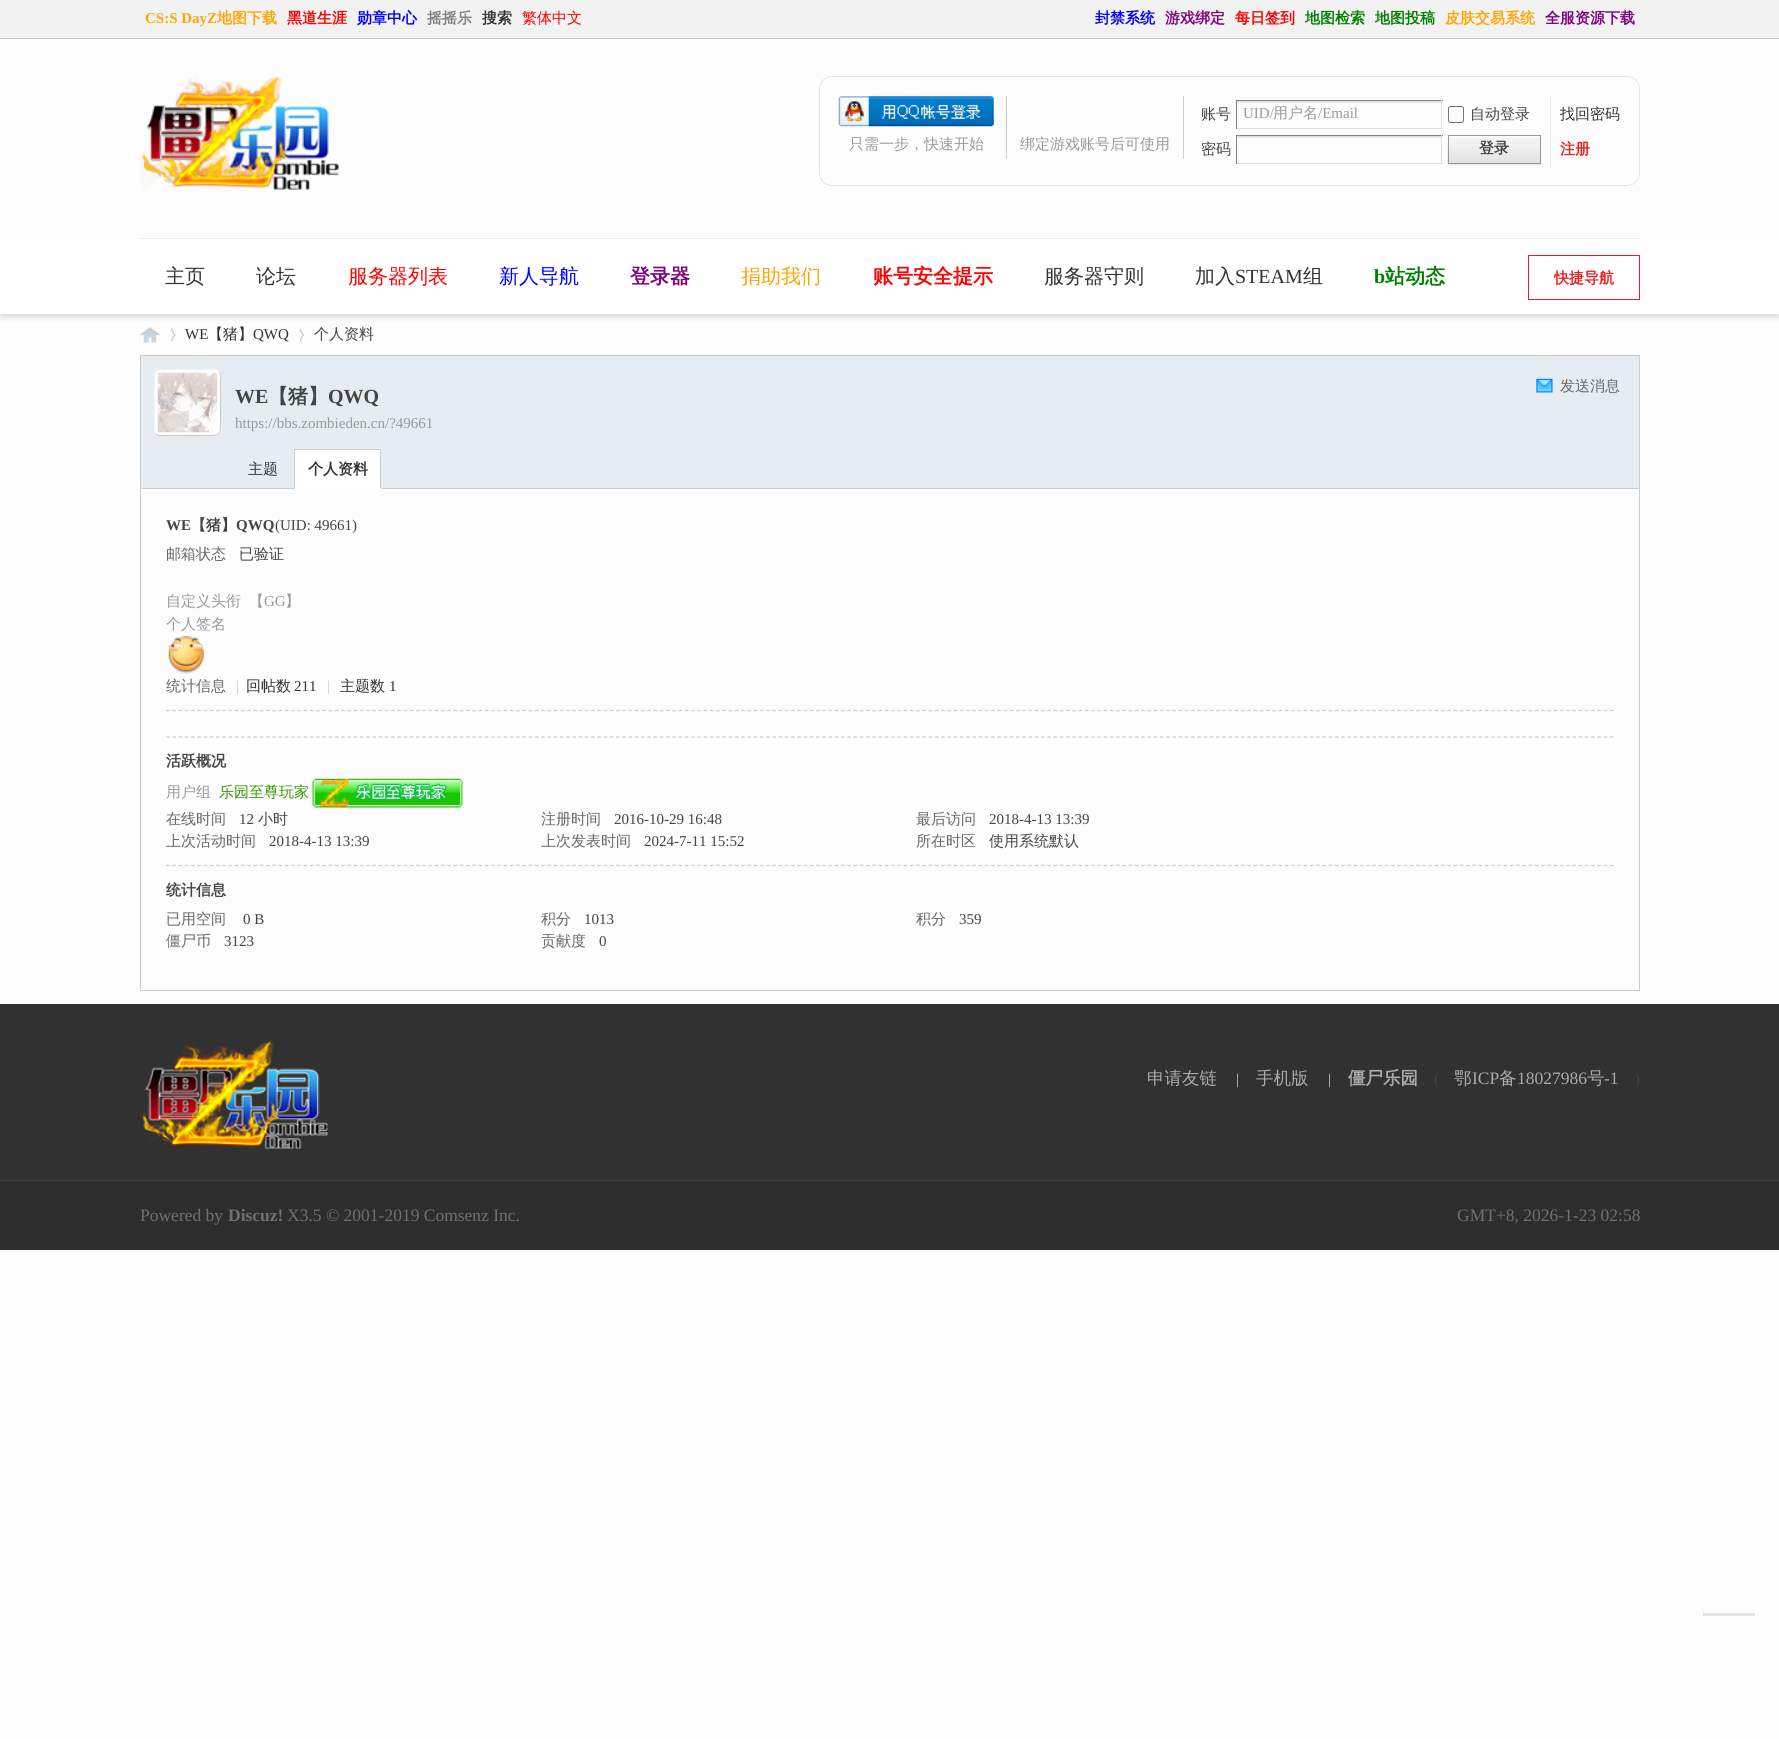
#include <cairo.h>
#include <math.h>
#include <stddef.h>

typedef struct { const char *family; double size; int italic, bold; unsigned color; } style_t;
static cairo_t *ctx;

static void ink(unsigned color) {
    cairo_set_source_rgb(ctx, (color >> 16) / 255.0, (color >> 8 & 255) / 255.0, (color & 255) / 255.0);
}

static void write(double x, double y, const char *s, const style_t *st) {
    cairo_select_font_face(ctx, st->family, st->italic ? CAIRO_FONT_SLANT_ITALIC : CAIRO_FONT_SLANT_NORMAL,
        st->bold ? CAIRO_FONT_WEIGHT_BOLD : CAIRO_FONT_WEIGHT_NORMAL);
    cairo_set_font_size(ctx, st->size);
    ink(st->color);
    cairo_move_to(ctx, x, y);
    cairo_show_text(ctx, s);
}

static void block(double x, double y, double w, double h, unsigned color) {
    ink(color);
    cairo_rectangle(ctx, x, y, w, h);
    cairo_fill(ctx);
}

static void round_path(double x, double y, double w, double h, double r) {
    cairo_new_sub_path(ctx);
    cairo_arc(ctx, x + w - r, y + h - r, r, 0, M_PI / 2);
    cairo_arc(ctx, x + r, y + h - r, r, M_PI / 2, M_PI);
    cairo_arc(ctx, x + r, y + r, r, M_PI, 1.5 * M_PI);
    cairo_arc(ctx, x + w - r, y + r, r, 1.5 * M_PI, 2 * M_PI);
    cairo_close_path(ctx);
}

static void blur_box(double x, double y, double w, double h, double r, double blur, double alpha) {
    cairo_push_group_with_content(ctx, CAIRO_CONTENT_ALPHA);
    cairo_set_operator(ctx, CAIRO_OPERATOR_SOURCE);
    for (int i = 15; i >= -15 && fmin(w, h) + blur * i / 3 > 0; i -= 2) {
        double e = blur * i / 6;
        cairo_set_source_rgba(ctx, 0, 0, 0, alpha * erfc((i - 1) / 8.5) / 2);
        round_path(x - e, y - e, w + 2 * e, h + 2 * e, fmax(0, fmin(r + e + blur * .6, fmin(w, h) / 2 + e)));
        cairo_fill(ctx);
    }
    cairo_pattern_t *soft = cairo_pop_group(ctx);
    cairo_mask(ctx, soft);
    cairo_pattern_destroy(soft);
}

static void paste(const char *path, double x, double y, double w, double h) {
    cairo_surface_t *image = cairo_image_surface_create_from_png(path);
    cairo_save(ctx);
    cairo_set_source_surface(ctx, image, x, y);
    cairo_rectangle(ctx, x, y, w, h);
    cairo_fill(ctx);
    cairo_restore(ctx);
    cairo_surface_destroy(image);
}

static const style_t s1 = {"Liberation Serif", 15, 0, 1, 0xffa500};
static const style_t s2 = {"WenQuanYi Zen Hei", 15, 0, 1, 0xffa500};
static const style_t s3 = {"WenQuanYi Zen Hei", 15, 0, 1, 0xff0000};
static const style_t s4 = {"WenQuanYi Zen Hei", 15, 0, 1, 0x0000ff};
static const style_t s5 = {"WenQuanYi Zen Hei", 15, 0, 1, 0x808080};
static const style_t s6 = {"WenQuanYi Zen Hei", 15, 0, 1, 0x333333};
static const style_t s7 = {"WenQuanYi Zen Hei Medium", 15, 0, 0, 0xff0000};
static const style_t s8 = {"WenQuanYi Zen Hei", 15, 0, 1, 0x800080};
static const style_t s9 = {"WenQuanYi Zen Hei", 15, 0, 1, 0x008000};
static const style_t s10 = {"WenQuanYi Zen Hei Medium", 15, 0, 0, 0x999999};
static const style_t s11 = {"WenQuanYi Zen Hei Medium", 15, 0, 0, 0x444444};
static const style_t s12 = {"Liberation Serif", 15, 0, 0, 0x999999};
static const style_t s13 = {"WenQuanYi Zen Hei Medium", 15, 0, 0, 0x333333};
static const style_t s14 = {"WenQuanYi Zen Hei", 15, 0, 1, 0x444444};
static const style_t s15 = {"WenQuanYi Zen Hei", 15, 0, 1, 0xe52222};
static const style_t s16 = {"WenQuanYi Zen Hei Medium", 20, 0, 0, 0x333333};
static const style_t s17 = {"WenQuanYi Zen Hei Medium", 20, 0, 0, 0xff0000};
static const style_t s18 = {"WenQuanYi Zen Hei Medium", 20, 0, 0, 0x0000ff};
static const style_t s19 = {"WenQuanYi Zen Hei", 20, 0, 1, 0x800080};
static const style_t s20 = {"WenQuanYi Zen Hei Medium", 20, 0, 0, 0xffa500};
static const style_t s21 = {"WenQuanYi Zen Hei", 20, 0, 1, 0xff0000};
static const style_t s22 = {"Liberation Serif", 20, 0, 0, 0x333333};
static const style_t s23 = {"Liberation Serif", 20, 0, 1, 0x008000};
static const style_t s24 = {"WenQuanYi Zen Hei", 20, 0, 1, 0x008000};
static const style_t s25 = {"Liberation Serif", 15, 0, 0, 0x333333};
static const style_t s26 = {"Liberation Serif", 20, 0, 1, 0x444444};
static const style_t s27 = {"WenQuanYi Zen Hei", 20, 0, 1, 0x444444};
static const style_t s28 = {"WenQuanYi Zen Hei Medium", 15, 0, 0, 0x666666};
static const style_t s29 = {"Liberation Serif", 15, 0, 1, 0x444444};
static const style_t s30 = {"Liberation Serif", 15, 0, 0, 0x444444};
static const style_t s31 = {"Liberation Serif", 15, 0, 0, 0xcccccc};
static const style_t s32 = {"WenQuanYi Zen Hei Medium", 15, 0, 0, 0x339900};
static const style_t s33 = {"WenQuanYi Zen Hei Medium", 17.5, 0, 0, 0xaaaaaa};
static const style_t s34 = {"WenQuanYi Zen Hei", 17.5, 0, 1, 0xaaaaaa};
static const style_t s35 = {"Liberation Serif", 17.5, 0, 0, 0xaaaaaa};
static const style_t s36 = {"Liberation Serif", 17.5, 0, 0, 0x6f6f6f};
static const style_t s37 = {"Liberation Serif", 17.5, 0, 1, 0x6f6f6f};

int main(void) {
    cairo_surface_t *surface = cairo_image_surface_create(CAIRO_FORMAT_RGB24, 1779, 1739);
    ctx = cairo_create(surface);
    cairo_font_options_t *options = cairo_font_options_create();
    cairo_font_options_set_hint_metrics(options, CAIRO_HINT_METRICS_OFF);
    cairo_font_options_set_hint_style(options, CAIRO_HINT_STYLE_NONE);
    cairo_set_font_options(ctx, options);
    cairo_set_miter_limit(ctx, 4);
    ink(0xfdfdfd);
    cairo_paint(ctx);
    block(0, 0, 1779, 38, 0xf2f2f2);
    block(0, 38, 1779, 1, 0xcdcdcd);
    write(145, 23, "CS:S DayZ", &s1);
    write(217, 23, "地图下载", &s2);
    write(287, 23, "黑道生涯", &s3);
    write(357, 23, "勋章中心", &s4);
    write(427, 23, "摇摇乐", &s5);
    write(482, 23, "搜索", &s6);
    write(522, 23, "繁体中文", &s7);
    write(1095, 23, "封禁系统", &s4);
    write(1165, 23, "游戏绑定", &s8);
    write(1235, 23, "每日签到", &s3);
    write(1305, 23, "地图检索", &s9);
    write(1375, 23, "地图投稿", &s9);
    write(1445, 23, "皮肤交易系统", &s2);
    write(1545, 23, "全服资源下载", &s8);
    block(140, 238, 1500, 1, 0xf1f1f1);
    paste("pic1.png", 140, 76, 199, 114);
    round_path(819.5, 76.5, 820, 109, 12.5);
    ink(0xe5e5e5);
    cairo_set_line_width(ctx, 1);
    cairo_stroke(ctx);
    block(1006, 96, 1, 63, 0xcdcdcd);
    paste("pic2.png", 838, 96, 156, 31);
    write(849, 149, "只需一步，快速开始", &s10);
    block(1183, 96, 1, 63, 0xcdcdcd);
    write(1020, 149, "绑定游戏账号后可使用", &s10);
    write(1201, 119, "账号", &s11);
    paste("pic3.png", 1237, 101, 206, 2);
    block(1236, 100, 207, 1, 0x848484);
    block(1441, 100, 1, 29, 0xe0e0e0);
    block(1236, 128, 207, 1, 0xe0e0e0);
    block(1236, 100, 1, 29, 0x848484);
    write(1243, 118, "UID/", &s12);
    write(1273, 118, "用户名", &s10);
    write(1318, 118, "/Email", &s12);
    round_path(1448.5, 106.5, 15, 16, 2);
    ink(0x767676);
    cairo_stroke(ctx);
    write(1470, 119, "自动登录", &s11);
    write(1560, 119, "找回密码", &s13);
    write(1201, 154, "密码", &s11);
    paste("pic3.png", 1237, 136, 206, 2);
    block(1236, 135, 207, 1, 0x848484);
    block(1441, 135, 1, 29, 0xe0e0e0);
    block(1236, 163, 207, 1, 0xe0e0e0);
    block(1236, 135, 1, 29, 0x848484);
    block(1550, 96, 1, 72, 0xe5edf2);
    block(1448, 164, 93, 1, 0xe5e5e5);
    paste("pic4.png", 1447, 136, 95, 28);
    cairo_rectangle(ctx, 1448.5, 135.5, 92, 28);
    ink(0x999999);
    cairo_stroke(ctx);
    write(1479, 153, "登录", &s14);
    write(1560, 154, "注册", &s15);
    ink(0xdedede);
    blur_box(0, 243, 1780, 75, 0, 2.5, 1);
    block(0, 239, 1779, 75, 0xffffff);
    write(165, 283, "主页", &s16);
    write(256, 283, "论坛", &s16);
    write(348, 283, "服务器列表", &s17);
    write(499, 283, "新人导航", &s18);
    write(630, 283, "登录器", &s19);
    write(741, 283, "捐助我们", &s20);
    write(873, 283, "账号安全提示", &s21);
    write(1044, 283, "服务器守则", &s16);
    write(1195, 283, "加入", &s16);
    write(1235, 283, "STEAM", &s22);
    write(1303, 283, "组", &s16);
    write(1374, 283, "b", &s23);
    write(1385, 283, "站动态", &s24);
    cairo_rectangle(ctx, 1528.5, 255.5, 111, 44);
    ink(0xe52222);
    cairo_stroke(ctx);
    write(1554, 283, "快捷导航", &s15);
    paste("pic5.png", 140, 327, 20, 16);
    paste("pic6.png", 171, 328, 5, 14);
    write(185, 339, "WE", &s25);
    write(208, 339, "【猪】", &s13);
    write(253, 339, "QWQ", &s25);
    paste("pic7.png", 300, 328, 4, 14);
    write(314, 339, "个人资料", &s11);
    block(141, 356, 1498, 132, 0xe5edf2);
    block(140, 355, 1500, 1, 0xcccccc);
    block(1639, 355, 1, 636, 0xcccccc);
    block(140, 355, 1, 134, 0xcccccc);
    ink(0xffffff);
    round_path(154, 369, 67, 67, 6);
    cairo_fill(ctx);
    cairo_new_path(ctx);
    cairo_move_to(ctx, 219, 371);
    cairo_curve_to(ctx, 222, 374, 220.5, 381.5, 220.5, 384);
    cairo_line_to(ctx, 220.5, 421);
    cairo_curve_to(ctx, 220.5, 436, 221, 435.5, 206, 435.5);
    cairo_line_to(ctx, 169, 435.5);
    cairo_curve_to(ctx, 166.5, 435.5, 159, 437, 156, 434);
    ink(0xcdcdcd);
    cairo_set_line_width(ctx, 1.2);
    cairo_stroke(ctx);
    cairo_new_path(ctx);
    cairo_move_to(ctx, 156, 434);
    cairo_curve_to(ctx, 153, 431, 154.5, 423.5, 154.5, 421);
    cairo_line_to(ctx, 154.5, 384);
    cairo_curve_to(ctx, 154.5, 369, 154, 369.5, 169, 369.5);
    cairo_line_to(ctx, 206, 369.5);
    cairo_curve_to(ctx, 208.5, 369.5, 216, 368, 219, 371);
    ink(0xf2f2f2);
    cairo_stroke(ctx);
    paste("pic8.png", 157, 372, 61, 61);
    write(235, 403, "WE", &s26);
    write(268, 403, "【猪】", &s27);
    write(328, 403, "QWQ", &s26);
    write(235, 428, "https://bbs.zombieden.cn/?49661", &s12);
    paste("pic9.png", 1536, 378, 17, 15);
    write(1560, 391, "发送消息", &s28);
    block(141, 488, 1498, 1, 0xcdcdcd);
    write(248, 474, "主题", &s13);
    block(295, 450, 85, 38, 0xffffff);
    block(294, 449, 87, 1, 0xcccccc);
    block(380, 449, 1, 40, 0xcccccc);
    block(294, 488, 87, 1, 0xffffff);
    block(294, 449, 1, 40, 0xcccccc);
    write(308, 474, "个人资料", &s6);
    block(140, 990, 1500, 1, 0xcccccc);
    block(140, 489, 1, 502, 0xcccccc);
    cairo_new_path(ctx);
    cairo_move_to(ctx, 166, 737);
    cairo_line_to(ctx, 1614, 737);
    ink(0xcdcdcd);
    cairo_set_dash(ctx, (double[]){3.75, 2.5}, 2, 0);
    cairo_stroke(ctx);
    write(166, 530, "WE", &s29);
    write(191, 530, "【猪】", &s14);
    write(236, 530, "QWQ", &s29);
    write(275, 530, "(UID: 49661)", &s30);
    write(166, 559, "邮箱状态", &s28);
    write(239, 559, "已验证", &s11);
    write(166, 606, "自定义头衔", &s10);
    write(249, 606, "【", &s10);
    write(264, 606, "GG", &s12);
    write(285, 606, "】", &s10);
    write(166, 629, "个人签名", &s10);
    paste("pic10.png", 168, 636, 37, 38);
    cairo_new_path(ctx);
    cairo_move_to(ctx, 166, 710.5);
    cairo_line_to(ctx, 1614, 710.5);
    ink(0xcdcdcd);
    cairo_stroke(ctx);
    write(166, 691, "统计信息", &s28);
    write(236, 691, "|", &s31);
    write(246, 691, "回帖数", &s13);
    write(294, 691, "211", &s25);
    write(327, 691, "|", &s31);
    write(340, 691, "主题数", &s13);
    write(389, 691, "1", &s25);
    cairo_new_path(ctx);
    cairo_move_to(ctx, 166, 865.5);
    cairo_line_to(ctx, 1614, 865.5);
    ink(0xcdcdcd);
    cairo_stroke(ctx);
    write(166, 766, "活跃概况", &s14);
    write(166, 797, "用户组", &s10);
    write(219, 797, "乐园至尊玩家", &s32);
    paste("pic11.png", 312, 778, 151, 30);
    write(166, 824, "在线时间", &s28);
    write(239, 824, "12", &s30);
    write(258, 824, "小时", &s11);
    write(541, 824, "注册时间", &s28);
    write(614, 824, "2016-10-29 16:48", &s30);
    write(916, 824, "最后访问", &s28);
    write(989, 824, "2018-4-13 13:39", &s30);
    write(166, 846, "上次活动时间", &s28);
    write(269, 846, "2018-4-13 13:39", &s30);
    write(541, 846, "上次发表时间", &s28);
    write(644, 846, "2024-7-11 15:52", &s30);
    write(916, 846, "所在时区", &s28);
    write(989, 846, "使用系统默认", &s11);
    write(166, 895, "统计信息", &s14);
    write(166, 924, "已用空间", &s28);
    write(243, 924, "0 B", &s30);
    write(541, 924, "积分", &s28);
    write(584, 924, "1013", &s30);
    write(916, 924, "积分", &s28);
    write(959, 924, "359", &s30);
    write(166, 946, "僵尸币", &s28);
    write(224, 946, "3123", &s30);
    write(541, 946, "贡献度", &s28);
    write(599, 946, "0", &s30);
    block(0, 1004, 1779, 176, 0x313131);
    paste("pic12.png", 142, 1041, 186, 108);
    write(1147, 1084, "申请友链", &s33);
    write(1236, 1084, "|", &s31);
    write(1256, 1084, "手机版", &s33);
    write(1328, 1084, "|", &s31);
    write(1348, 1084, "僵尸乐园", &s34);
    write(1434, 1084, "(", &s30);
    write(1454, 1084, "鄂", &s33);
    write(1472, 1084, "ICP", &s35);
    write(1499, 1084, "备", &s33);
    write(1517, 1084, "18027986", &s35);
    write(1587, 1084, "号", &s33);
    write(1604, 1084, "-1", &s35);
    write(1635, 1084, ")", &s30);
    block(0, 1181, 1779, 69, 0x2d2d2d);
    block(0, 1180, 1779, 1, 0x3c3c3c);
    write(140, 1221, "Powered by", &s36);
    write(228, 1221, "Discuz!", &s37);
    write(287, 1221, "X3.5 © 2001-2019 Comsenz Inc.", &s36);
    write(1457, 1221, "GMT+8, 2026-1-23 02:58", &s36);
    block(1703, 1613, 52, 3, 0xe3e3e3);
    cairo_surface_write_to_png(surface, "screenshot.png");
    cairo_font_options_destroy(options);
    cairo_destroy(ctx);
    cairo_surface_destroy(surface);
    return 0;
}
